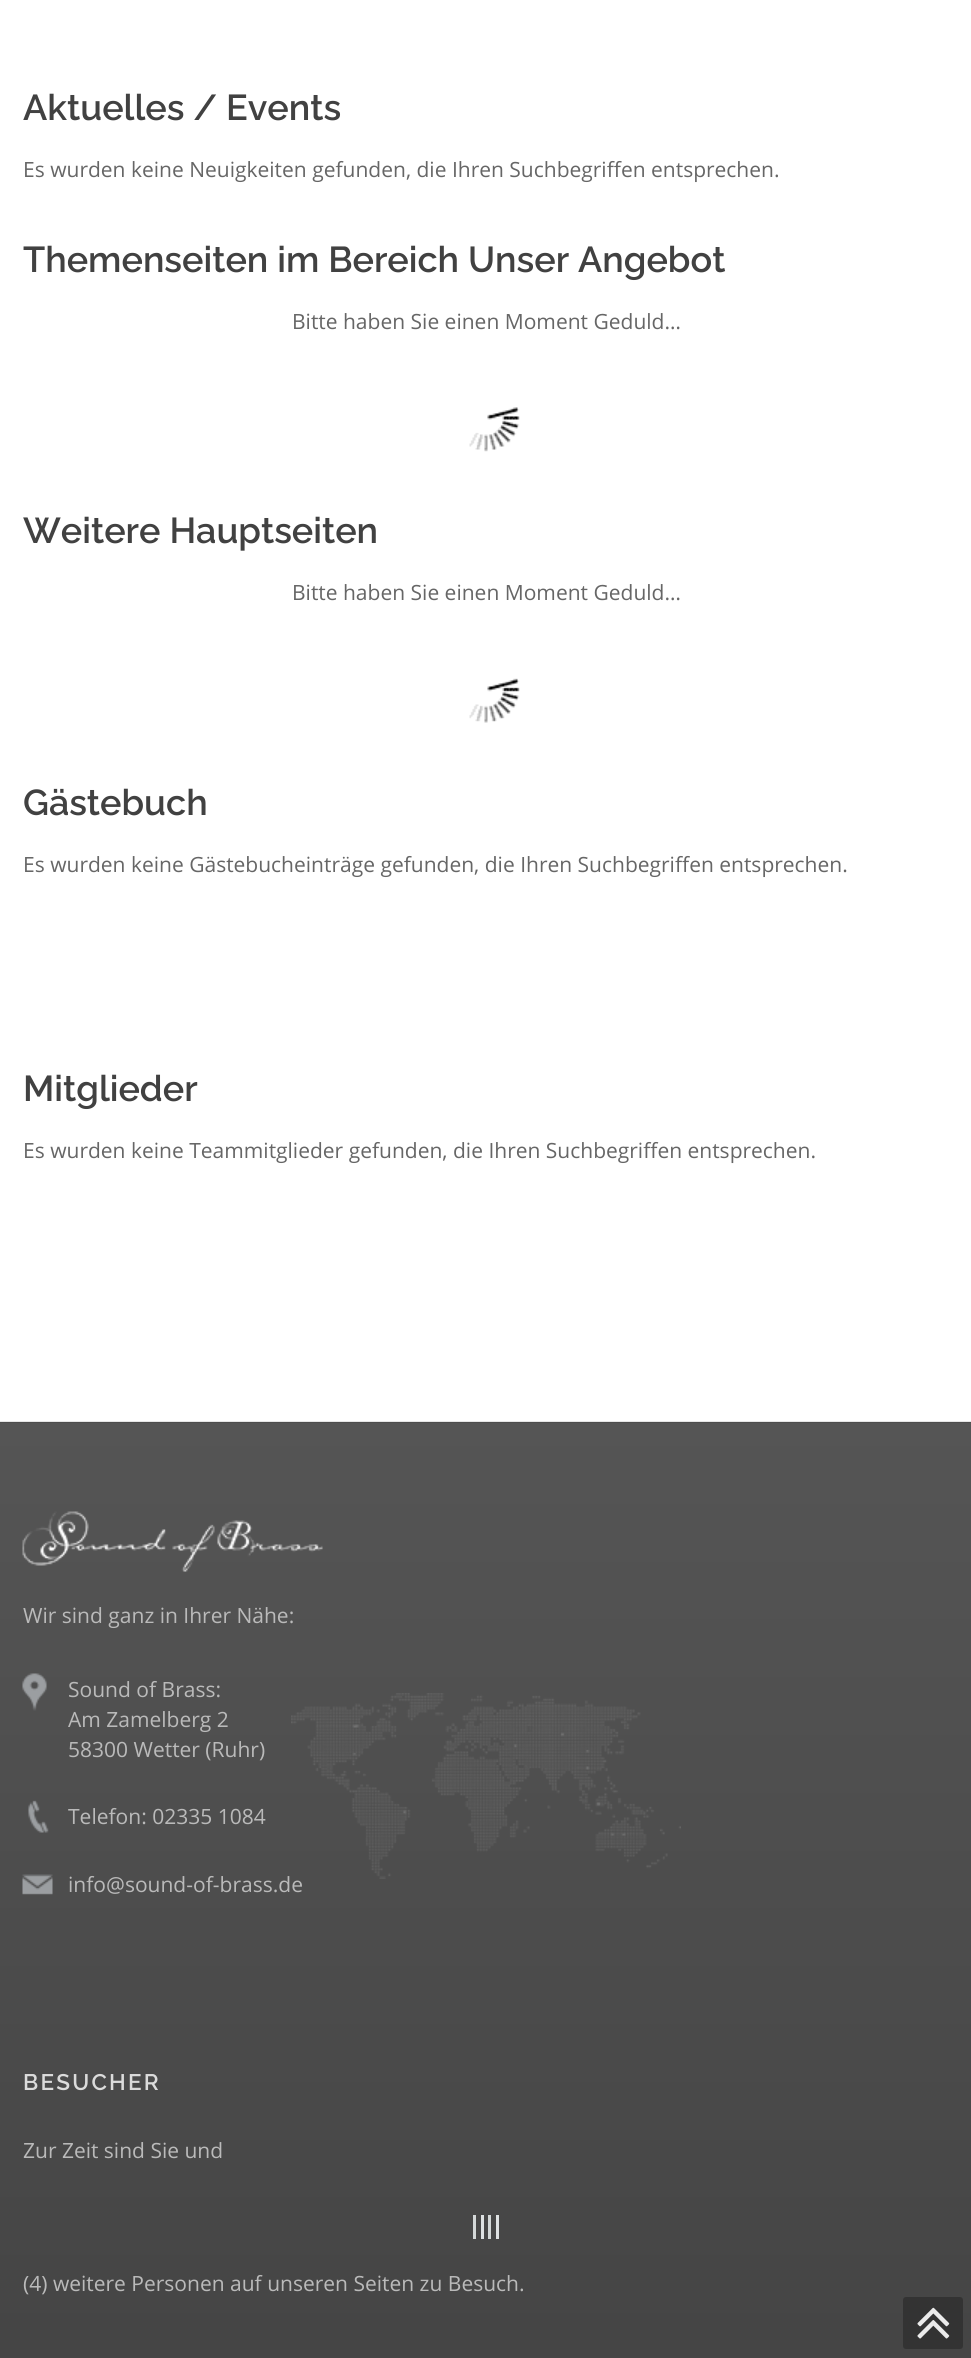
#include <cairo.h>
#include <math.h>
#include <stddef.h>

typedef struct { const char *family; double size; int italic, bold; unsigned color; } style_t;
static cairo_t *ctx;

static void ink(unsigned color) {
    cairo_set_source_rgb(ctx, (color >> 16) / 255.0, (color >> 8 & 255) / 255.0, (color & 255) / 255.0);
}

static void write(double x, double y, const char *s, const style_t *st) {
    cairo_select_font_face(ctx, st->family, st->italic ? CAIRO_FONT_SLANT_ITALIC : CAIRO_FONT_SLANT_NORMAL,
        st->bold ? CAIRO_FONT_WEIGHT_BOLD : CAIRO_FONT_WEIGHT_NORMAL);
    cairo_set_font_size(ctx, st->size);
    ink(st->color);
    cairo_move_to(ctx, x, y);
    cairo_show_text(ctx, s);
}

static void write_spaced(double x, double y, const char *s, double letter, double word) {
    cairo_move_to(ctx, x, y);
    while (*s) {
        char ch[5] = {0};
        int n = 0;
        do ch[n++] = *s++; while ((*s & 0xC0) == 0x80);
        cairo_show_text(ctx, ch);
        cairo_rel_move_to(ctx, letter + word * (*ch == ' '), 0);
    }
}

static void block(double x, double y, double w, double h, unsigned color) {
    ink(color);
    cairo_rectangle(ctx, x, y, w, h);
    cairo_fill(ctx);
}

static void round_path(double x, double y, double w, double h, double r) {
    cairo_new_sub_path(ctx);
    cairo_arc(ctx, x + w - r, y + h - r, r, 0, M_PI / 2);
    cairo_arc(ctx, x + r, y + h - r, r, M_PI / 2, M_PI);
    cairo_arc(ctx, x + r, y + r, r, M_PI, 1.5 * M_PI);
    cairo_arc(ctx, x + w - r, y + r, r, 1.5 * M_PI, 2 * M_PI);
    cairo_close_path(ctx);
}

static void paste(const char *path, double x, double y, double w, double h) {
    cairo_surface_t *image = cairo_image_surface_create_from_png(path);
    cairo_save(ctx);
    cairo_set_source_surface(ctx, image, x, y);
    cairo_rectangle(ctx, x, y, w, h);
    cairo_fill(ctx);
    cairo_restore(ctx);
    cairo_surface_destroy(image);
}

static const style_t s1 = {"Raleway SemiBold", 36, 0, 0, 0x414141};
static const style_t s2 = {"Open Sans", 21, 0, 0, 0x666666};
static const style_t s3 = {"Open Sans", 21, 0, 0, 0xbababa};

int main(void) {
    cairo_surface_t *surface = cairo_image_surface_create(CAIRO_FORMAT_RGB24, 971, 2358);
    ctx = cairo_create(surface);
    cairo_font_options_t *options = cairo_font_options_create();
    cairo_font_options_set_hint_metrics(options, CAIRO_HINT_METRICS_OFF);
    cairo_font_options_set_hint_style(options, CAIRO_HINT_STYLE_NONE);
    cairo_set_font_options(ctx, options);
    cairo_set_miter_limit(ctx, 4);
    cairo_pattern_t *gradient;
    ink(0xffffff);
    cairo_paint(ctx);
    block(0, 1421, 971, 1, 0xe6e6e6);
    write(23, 120, "Aktuelles / Events", &s1);
    write(23, 177, "Es wurden keine Neuigkeiten gefunden, die Ihren Suchbegriffen entsprechen.", &s2);
    write(23, 272, "Themenseiten im Bereich Unser Angebot", &s1);
    write(292, 329, "Bitte haben Sie einen Moment Geduld…", &s2);
    paste("pic1.png", 469, 407, 51, 45);
    write(23, 543, "Weitere Hauptseiten", &s1);
    write(292, 600, "Bitte haben Sie einen Moment Geduld…", &s2);
    paste("pic2.png", 469, 678, 51, 45);
    write(23, 815, "Gästebuch", &s1);
    write(23, 872, "Es wurden keine Gästebucheinträge gefunden, die Ihren Suchbegriffen entsprechen.", &s2);
    write(23, 1101, "Mitglieder", &s1);
    write(23, 1158, "Es wurden keine Teammitglieder gefunden, die Ihren Suchbegriffen entsprechen.", &s2);
    gradient = cairo_pattern_create_linear(486, 1422, 486, 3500);
    cairo_pattern_add_color_stop_rgba(gradient, 0, 0.333, 0.333, 0.333, 1);
    cairo_pattern_add_color_stop_rgba(gradient, 1, 0.192, 0.192, 0.192, 1);
    cairo_set_source(ctx, gradient);
    cairo_pattern_destroy(gradient);
    cairo_rectangle(ctx, 0, 1423, 971, 935);
    cairo_fill(ctx);
    gradient = cairo_pattern_create_linear(486, 1422, 486, 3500);
    cairo_pattern_add_color_stop_rgba(gradient, 0, 0.302, 0.302, 0.302, 1);
    cairo_pattern_add_color_stop_rgba(gradient, 1, 0.173, 0.173, 0.173, 1);
    cairo_set_source(ctx, gradient);
    cairo_pattern_destroy(gradient);
    cairo_rectangle(ctx, 0, 1422, 971, 1);
    cairo_fill(ctx);
    paste("pic3.png", 22, 1511, 301, 61);
    write(23, 1623, "Wir sind ganz in Ihrer Nähe:", &s3);
    paste("pic4.png", 291, 1693, 390, 186);
    paste("pic5.png", 22, 1673, 25, 38);
    write(68, 1697, "Sound of Brass:", &s3);
    write(68, 1727, "Am Zamelberg 2", &s3);
    write(68, 1757, "58300 Wetter (Ruhr)", &s3);
    paste("pic6.png", 28, 1800, 21, 33);
    write(68, 1824, "Telefon: 02335 1084", &s3);
    paste("pic7.png", 22, 1874, 31, 21);
    write(68, 1892, "info@sound-of-brass.de", &s3);
    cairo_select_font_face(ctx, "Raleway SemiBold", CAIRO_FONT_SLANT_NORMAL, CAIRO_FONT_WEIGHT_NORMAL);
    cairo_set_font_size(ctx, 22.5);
    ink(0xdbdbdb);
    write_spaced(23, 2090, "BESUCHER", 2.25, 0);
    write(23, 2158, "Zur Zeit sind Sie und", &s3);
    block(473, 2215, 3, 24, 0xd4d8d8);
    block(481, 2215, 3, 24, 0xdfe2e3);
    block(488, 2215, 3, 24, 0xd4d8d8);
    block(496, 2215, 3, 24, 0xdfe2e3);
    write(23, 2291, "(4) weitere Personen auf unseren Seiten zu Besuch.", &s3);
    ink(0x333333);
    round_path(903, 2297, 60, 52, 3);
    cairo_fill(ctx);
    paste("pic8.png", 917, 2307, 33, 32);
    cairo_surface_write_to_png(surface, "screenshot.png");
    cairo_font_options_destroy(options);
    cairo_destroy(ctx);
    cairo_surface_destroy(surface);
    return 0;
}
